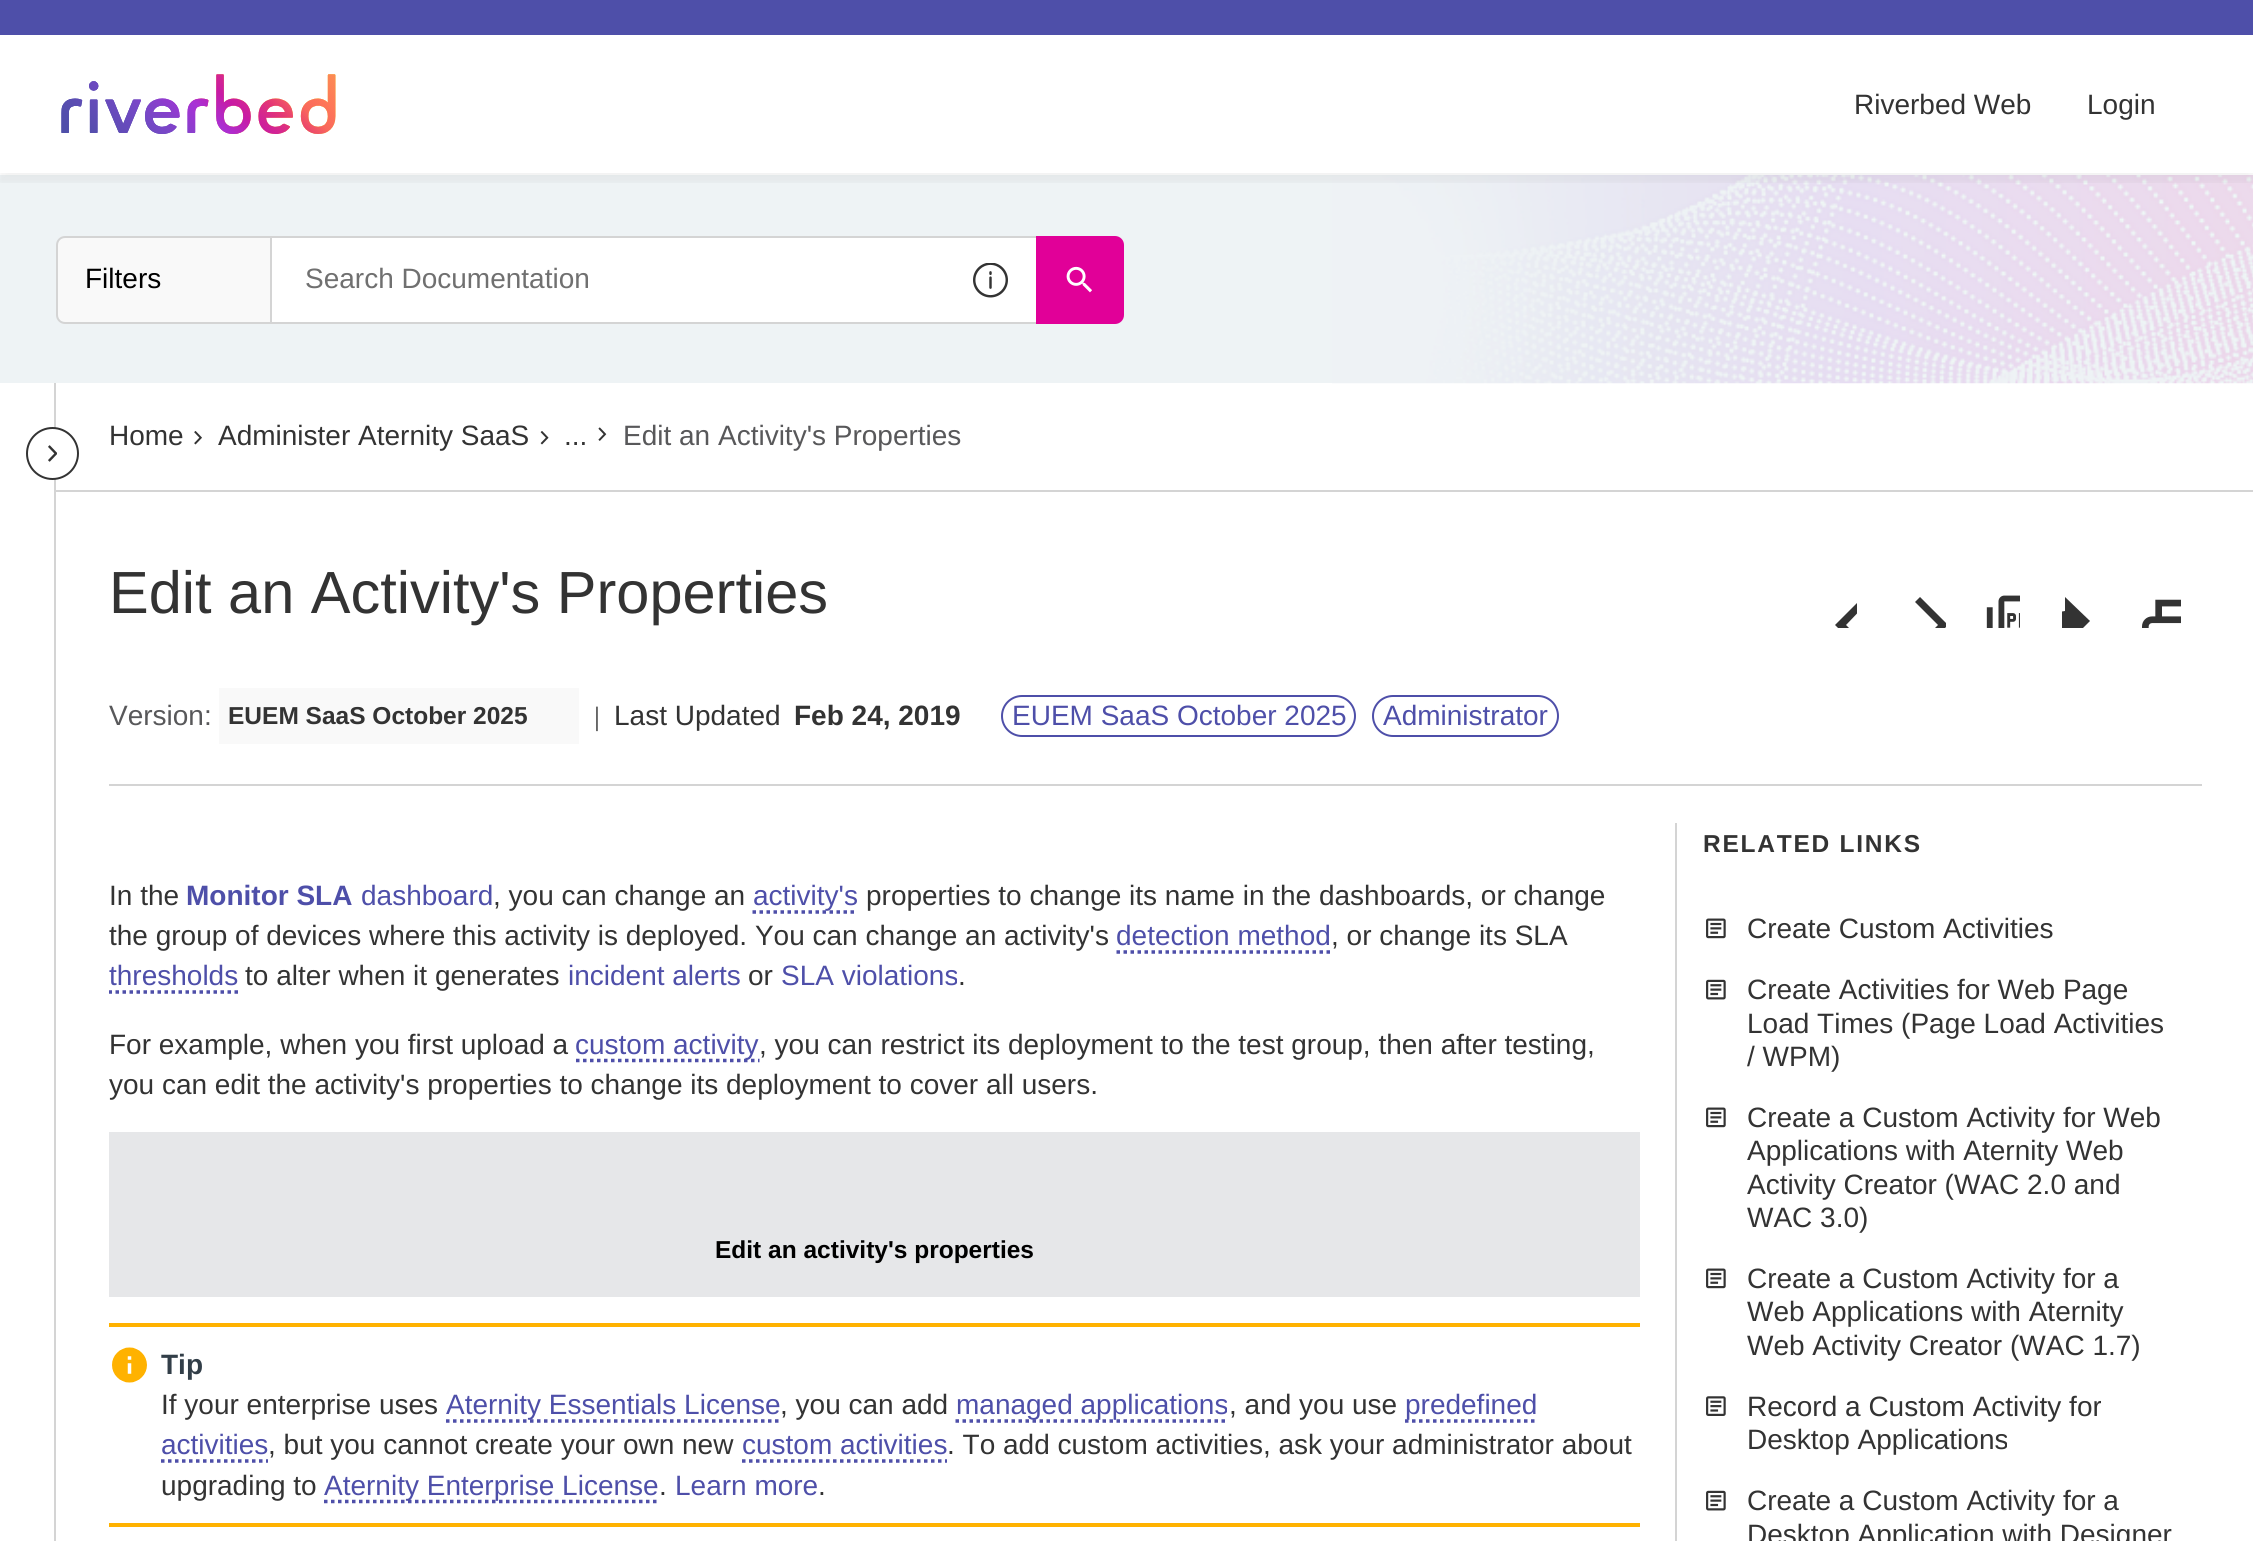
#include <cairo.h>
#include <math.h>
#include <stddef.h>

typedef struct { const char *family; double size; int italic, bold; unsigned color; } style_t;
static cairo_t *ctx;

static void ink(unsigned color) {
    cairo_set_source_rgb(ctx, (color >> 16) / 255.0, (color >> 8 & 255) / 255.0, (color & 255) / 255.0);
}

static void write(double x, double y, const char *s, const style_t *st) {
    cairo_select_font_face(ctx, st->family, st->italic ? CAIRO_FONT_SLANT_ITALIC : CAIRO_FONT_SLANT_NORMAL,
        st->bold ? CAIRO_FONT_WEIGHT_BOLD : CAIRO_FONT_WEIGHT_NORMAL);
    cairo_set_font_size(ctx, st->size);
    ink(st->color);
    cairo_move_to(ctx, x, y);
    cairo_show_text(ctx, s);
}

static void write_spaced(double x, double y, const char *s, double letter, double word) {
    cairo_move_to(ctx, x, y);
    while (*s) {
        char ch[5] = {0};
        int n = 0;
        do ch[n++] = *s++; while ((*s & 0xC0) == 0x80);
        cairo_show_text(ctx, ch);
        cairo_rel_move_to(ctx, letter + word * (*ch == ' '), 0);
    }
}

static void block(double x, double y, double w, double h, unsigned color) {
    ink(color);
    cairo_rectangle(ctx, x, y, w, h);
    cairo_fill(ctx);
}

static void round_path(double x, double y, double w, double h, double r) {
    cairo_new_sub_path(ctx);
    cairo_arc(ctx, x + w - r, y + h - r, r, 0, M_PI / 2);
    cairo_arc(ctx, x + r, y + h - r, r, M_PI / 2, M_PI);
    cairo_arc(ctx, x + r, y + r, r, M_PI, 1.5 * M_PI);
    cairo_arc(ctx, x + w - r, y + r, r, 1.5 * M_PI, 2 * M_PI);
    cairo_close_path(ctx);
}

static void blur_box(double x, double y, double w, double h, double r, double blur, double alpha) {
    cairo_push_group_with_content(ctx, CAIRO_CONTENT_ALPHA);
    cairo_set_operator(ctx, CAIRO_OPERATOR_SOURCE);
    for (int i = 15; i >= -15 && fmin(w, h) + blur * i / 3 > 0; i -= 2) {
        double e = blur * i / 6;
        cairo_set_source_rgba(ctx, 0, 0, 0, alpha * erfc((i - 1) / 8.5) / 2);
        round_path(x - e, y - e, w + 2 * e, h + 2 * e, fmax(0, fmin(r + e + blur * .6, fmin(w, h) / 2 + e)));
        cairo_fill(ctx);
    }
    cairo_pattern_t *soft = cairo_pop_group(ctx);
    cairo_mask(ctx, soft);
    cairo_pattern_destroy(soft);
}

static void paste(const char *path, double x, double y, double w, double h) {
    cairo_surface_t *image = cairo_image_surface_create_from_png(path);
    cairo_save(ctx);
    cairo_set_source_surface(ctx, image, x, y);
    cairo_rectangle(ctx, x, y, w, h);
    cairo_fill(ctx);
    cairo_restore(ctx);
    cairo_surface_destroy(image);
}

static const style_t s1 = {"Liberation Sans", 28, 0, 0, 0x333333};
static const style_t s2 = {"Liberation Sans", 28, 0, 0, 0x000000};
static const style_t s3 = {"Liberation Sans", 28, 0, 0, 0x707070};
static const style_t s4 = {"Liberation Sans", 28, 0, 0, 0x58585a};
static const style_t s5 = {"Liberation Sans", 59.5, 0, 0, 0x333333};
static const style_t s6 = {"Liberation Sans", 24.5, 0, 1, 0x333333};
static const style_t s7 = {"Source Sans Pro", 24.5, 0, 0, 0x333333};
static const style_t s8 = {"Liberation Sans", 28, 0, 1, 0x333333};
static const style_t s9 = {"Liberation Sans", 28, 0, 0, 0x4e4fa9};
static const style_t s10 = {"Liberation Sans", 28, 0, 1, 0x4e4fa9};
static const style_t s11 = {"Liberation Sans", 24.5, 0, 1, 0x000000};
static const style_t s12 = {"Liberation Sans", 28, 0, 1, 0x323e48};

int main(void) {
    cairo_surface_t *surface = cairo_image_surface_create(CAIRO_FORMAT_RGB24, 2253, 1541);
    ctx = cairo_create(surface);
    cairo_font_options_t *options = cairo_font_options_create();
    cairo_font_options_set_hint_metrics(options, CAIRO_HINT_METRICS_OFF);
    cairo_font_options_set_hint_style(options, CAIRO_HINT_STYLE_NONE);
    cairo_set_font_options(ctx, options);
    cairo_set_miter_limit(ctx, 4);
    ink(0xffffff);
    cairo_paint(ctx);
    block(0, 0, 2253, 35, 0x4e4fa9);
    block(0, 175, 1332, 208, 0xeef3f5);
    paste("pic2.png", 1332, 175, 921, 209);
    cairo_save(ctx);
    cairo_rectangle(ctx, 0, 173, 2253, 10);
    cairo_clip(ctx);
    ink(0x000000);
    blur_box(0, 44, 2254, 138, 0, 5, 0.05);
    cairo_restore(ctx);
    paste("pic1.png", 61, 74, 275, 60);
    write(1854, 114, "Riverbed Web", &s1);
    write(2087, 114, "Login", &s1);
    ink(0xf9f9f9);
    cairo_new_path(ctx);
    cairo_move_to(ctx, 65, 238);
    cairo_line_to(ctx, 270, 238);
    cairo_line_to(ctx, 270, 322);
    cairo_line_to(ctx, 65, 322);
    cairo_curve_to(ctx, 61, 322, 58, 319, 58, 315);
    cairo_line_to(ctx, 58, 245);
    cairo_curve_to(ctx, 58, 241, 61, 238, 65, 238);
    cairo_close_path(ctx);
    cairo_fill(ctx);
    ink(0xd4d4d4);
    cairo_set_fill_rule(ctx, CAIRO_FILL_RULE_EVEN_ODD);
    cairo_new_path(ctx);
    cairo_move_to(ctx, 65, 236);
    cairo_line_to(ctx, 270, 236);
    cairo_line_to(ctx, 270, 324);
    cairo_line_to(ctx, 65, 324);
    cairo_curve_to(ctx, 60, 324, 56, 320, 56, 315);
    cairo_line_to(ctx, 56, 245);
    cairo_curve_to(ctx, 56, 240, 60, 236, 65, 236);
    cairo_close_path(ctx);
    cairo_move_to(ctx, 65, 238);
    cairo_line_to(ctx, 270, 238);
    cairo_line_to(ctx, 270, 322);
    cairo_line_to(ctx, 65, 322);
    cairo_curve_to(ctx, 61, 322, 58, 319, 58, 315);
    cairo_line_to(ctx, 58, 245);
    cairo_curve_to(ctx, 58, 241, 61, 238, 65, 238);
    cairo_close_path(ctx);
    cairo_fill(ctx);
    write(85, 288, "Filters", &s2);
    block(272, 238, 764, 84, 0xffffff);
    block(270, 236, 766, 2, 0xd4d4d4);
    block(270, 322, 766, 2, 0xd4d4d4);
    block(270, 236, 2, 88, 0xd4d4d4);
    write(305, 288, "Search Documentation", &s3);
    paste("pic3.png", 973, 263, 35, 35);
    ink(0xe10098);
    cairo_new_path(ctx);
    cairo_move_to(ctx, 1036, 236);
    cairo_line_to(ctx, 1115, 236);
    cairo_curve_to(ctx, 1120, 236, 1124, 240, 1124, 245);
    cairo_line_to(ctx, 1124, 315);
    cairo_curve_to(ctx, 1124, 320, 1120, 324, 1115, 324);
    cairo_line_to(ctx, 1036, 324);
    cairo_close_path(ctx);
    cairo_fill(ctx);
    paste("pic4.png", 1066, 266, 26, 27);
    block(54, 383, 2, 1158, 0xd4d4d4);
    ink(0xffffff);
    cairo_arc(ctx, 52.5, 453.5, 25.5, 0, 2 * M_PI);
    cairo_fill_preserve(ctx);
    ink(0x333333);
    cairo_stroke(ctx);
    paste("pic5.png", 48, 445, 9, 17);
    block(56, 490, 2197, 2, 0xd4d4d4);
    write(109, 445, "Home", &s1);
    paste("pic6.png", 194, 431, 8, 14);
    write(218, 445, "Administer Aternity SaaS", &s1);
    paste("pic7.png", 540, 431, 9, 14);
    paste("pic8.png", 598, 427, 9, 14);
    write(564, 445, "...", &s1);
    write(623, 445, "Edit an Activity's Properties", &s4);
    block(109, 784, 2093, 2, 0xd4d4d4);
    write(109, 613, "Edit an Activity's Properties", &s5);
    cairo_save(ctx);
    cairo_set_fill_rule(ctx, CAIRO_FILL_RULE_WINDING);
    cairo_rectangle(ctx, 1818, 590, 39, 38);
    cairo_clip(ctx);
    cairo_new_path(ctx);
    cairo_move_to(ctx, 1869, 601);
    cairo_line_to(ctx, 1864, 596);
    cairo_line_to(ctx, 1835, 625);
    cairo_line_to(ctx, 1864, 654);
    cairo_line_to(ctx, 1869, 648);
    cairo_line_to(ctx, 1846, 625);
    cairo_close_path(ctx);
    cairo_fill(ctx);
    cairo_restore(ctx);
    cairo_save(ctx);
    cairo_set_fill_rule(ctx, CAIRO_FILL_RULE_WINDING);
    cairo_rectangle(ctx, 1899, 590, 47, 38);
    cairo_clip(ctx);
    cairo_new_path(ctx);
    cairo_move_to(ctx, 1915, 648);
    cairo_line_to(ctx, 1920, 653);
    cairo_line_to(ctx, 1948, 625);
    cairo_line_to(ctx, 1920, 597);
    cairo_line_to(ctx, 1915, 602);
    cairo_line_to(ctx, 1938, 625);
    cairo_close_path(ctx);
    cairo_fill(ctx);
    cairo_restore(ctx);
    paste("pic9.png", 1986, 595, 34, 33);
    cairo_save(ctx);
    cairo_set_fill_rule(ctx, CAIRO_FILL_RULE_WINDING);
    cairo_rectangle(ctx, 2062, 579, 38, 49);
    cairo_clip(ctx);
    cairo_new_path(ctx);
    cairo_move_to(ctx, 2065, 611);
    cairo_line_to(ctx, 2065, 597);
    cairo_line_to(ctx, 2090, 621);
    cairo_line_to(ctx, 2065, 646);
    cairo_line_to(ctx, 2065, 631);
    cairo_curve_to(ctx, 2048, 631, 2035, 637, 2026, 649);
    cairo_curve_to(ctx, 2030, 632, 2040, 614, 2065, 611);
    cairo_close_path(ctx);
    cairo_fill(ctx);
    cairo_restore(ctx);
    paste("pic10.png", 2142, 599, 39, 29);
    write(109, 725, "Version:", &s4);
    block(219, 688, 360, 56, 0xf9f9f9);
    write(228, 724, "EUEM SaaS October 2025", &s6);
    write(594, 725, "|", &s7);
    write(614, 725, "Last Updated", &s1);
    write(794, 725, "Feb 24, 2019", &s8);
    round_path(1002, 696, 353, 40, 20);
    ink(0x4e4fa9);
    cairo_stroke(ctx);
    write(1012, 725, "EUEM SaaS October 2025", &s9);
    round_path(1373, 696, 185, 40, 20);
    cairo_stroke(ctx);
    write(1383, 725, "Administrator", &s9);
    block(1675, 823, 2, 718, 0xd4d4d4);
    write(109, 905, "In the", &s1);
    write(186, 905, "Monitor SLA", &s10);
    write(361, 905, "dashboard", &s9);
    write(493, 905, ", you can change an", &s1);
    cairo_new_path(ctx);
    cairo_move_to(ctx, 752.5, 912);
    cairo_line_to(ctx, 857.5, 912);
    ink(0x4e4fa9);
    cairo_set_line_width(ctx, 3.5);
    cairo_set_dash(ctx, (double[]){3.5, 3.5}, 2, 0);
    cairo_stroke(ctx);
    write(753, 905, "activity's", &s9);
    write(866, 905, "properties to change its name in the dashboards, or change", &s1);
    write(109, 945, "the group of devices where this activity is deployed. You can change an activity's", &s1);
    write(1116, 945, "detection method", &s9);
    cairo_new_path(ctx);
    cairo_move_to(ctx, 1116.5, 952);
    cairo_line_to(ctx, 1332, 952);
    cairo_stroke(ctx);
    write(1331, 945, ", or change its SLA", &s1);
    write(109, 985, "thresholds", &s9);
    cairo_save(ctx);
    cairo_set_fill_rule(ctx, CAIRO_FILL_RULE_WINDING);
    cairo_rectangle(ctx, 109, 823, 1566, 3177);
    cairo_clip(ctx);
    cairo_new_path(ctx);
    cairo_move_to(ctx, 108.5, 992);
    cairo_line_to(ctx, 238, 992);
    cairo_stroke(ctx);
    cairo_restore(ctx);
    write(245, 985, "to alter when it generates", &s1);
    write(568, 985, "incident alerts", &s9);
    write(748, 985, "or", &s1);
    write(781, 985, "SLA violations", &s9);
    write(958, 985, ".", &s1);
    write(109, 1054, "For example, when you first upload a", &s1);
    cairo_new_path(ctx);
    cairo_move_to(ctx, 576, 1060.5);
    cairo_line_to(ctx, 759.5, 1060.5);
    ink(0x4e4fa9);
    cairo_stroke(ctx);
    write(575, 1054, "custom activity", &s9);
    write(759, 1054, ", you can restrict its deployment to the test group, then after testing,", &s1);
    write(109, 1094, "you can edit the activity's properties to change its deployment to cover all users.", &s1);
    block(109, 1132, 1531, 165, 0xe6e7e9);
    write(715, 1258, "Edit an activity's properties", &s11);
    block(109, 1323, 1531, 4, 0xffb200);
    block(109, 1523, 1531, 4, 0xffb200);
    paste("pic11.png", 112, 1347, 35, 36);
    write(161, 1374, "Tip", &s12);
    write(161, 1414, "If your enterprise uses", &s1);
    cairo_new_path(ctx);
    cairo_move_to(ctx, 446, 1421);
    cairo_line_to(ctx, 780.5, 1421);
    ink(0x4e4fa9);
    cairo_stroke(ctx);
    write(446, 1414, "Aternity Essentials License", &s9);
    write(780, 1414, ", you can add", &s1);
    cairo_new_path(ctx);
    cairo_move_to(ctx, 955.5, 1421);
    cairo_line_to(ctx, 1228.5, 1421);
    ink(0x4e4fa9);
    cairo_stroke(ctx);
    write(956, 1414, "managed applications", &s9);
    write(1229, 1414, ", and you use", &s1);
    cairo_new_path(ctx);
    cairo_move_to(ctx, 1405, 1421);
    cairo_line_to(ctx, 1536.5, 1421);
    ink(0x4e4fa9);
    cairo_stroke(ctx);
    write(1405, 1414, "predefined", &s9);
    write(161, 1454, "activities", &s9);
    cairo_new_path(ctx);
    cairo_move_to(ctx, 161, 1461);
    cairo_line_to(ctx, 268, 1461);
    cairo_stroke(ctx);
    write(268, 1454, ", but you cannot create your own new", &s1);
    write(742, 1454, "custom activities", &s9);
    cairo_new_path(ctx);
    cairo_move_to(ctx, 742, 1461);
    cairo_line_to(ctx, 947, 1461);
    cairo_stroke(ctx);
    write(947, 1454, ". To add custom activities, ask your administrator about", &s1);
    write(161, 1495, "upgrading to", &s1);
    cairo_new_path(ctx);
    cairo_move_to(ctx, 324, 1501.5);
    cairo_line_to(ctx, 660, 1501.5);
    ink(0x4e4fa9);
    cairo_stroke(ctx);
    write(324, 1495, "Aternity Enterprise License", &s9);
    write(659, 1495, ".", &s1);
    write(675, 1495, "Learn more", &s9);
    write(818, 1495, ".", &s1);
    cairo_select_font_face(ctx, "Liberation Sans", CAIRO_FONT_SLANT_NORMAL, CAIRO_FONT_WEIGHT_BOLD);
    cairo_set_font_size(ctx, 24.5);
    write_spaced(1703, 852, "RELATED LINKS", 1.75, 0);
    paste("pic12.png", 1706, 918, 20, 21);
    write(1747, 938, "Create Custom Activities", &s1);
    paste("pic13.png", 1706, 979, 20, 21);
    write(1747, 999, "Create Activities for Web Page", &s1);
    write(1747, 1033, "Load Times (Page Load Activities", &s1);
    write(1747, 1066, "/ WPM)", &s1);
    paste("pic12.png", 1706, 1107, 20, 21);
    write(1747, 1127, "Create a Custom Activity for Web", &s1);
    write(1747, 1160, "Applications with Aternity Web", &s1);
    write(1747, 1194, "Activity Creator (WAC 2.0 and", &s1);
    write(1747, 1227, "WAC 3.0)", &s1);
    paste("pic12.png", 1706, 1268, 20, 21);
    write(1747, 1288, "Create a Custom Activity for a", &s1);
    write(1747, 1321, "Web Applications with Aternity", &s1);
    write(1747, 1355, "Web Activity Creator (WAC 1.7)", &s1);
    paste("pic14.png", 1706, 1396, 20, 20);
    write(1747, 1416, "Record a Custom Activity for", &s1);
    write(1747, 1449, "Desktop Applications", &s1);
    paste("pic13.png", 1706, 1490, 20, 21);
    write(1747, 1510, "Create a Custom Activity for a", &s1);
    write(1747, 1544, "Desktop Application with Designer", &s1);
    cairo_surface_write_to_png(surface, "screenshot.png");
    cairo_font_options_destroy(options);
    cairo_destroy(ctx);
    cairo_surface_destroy(surface);
    return 0;
}
